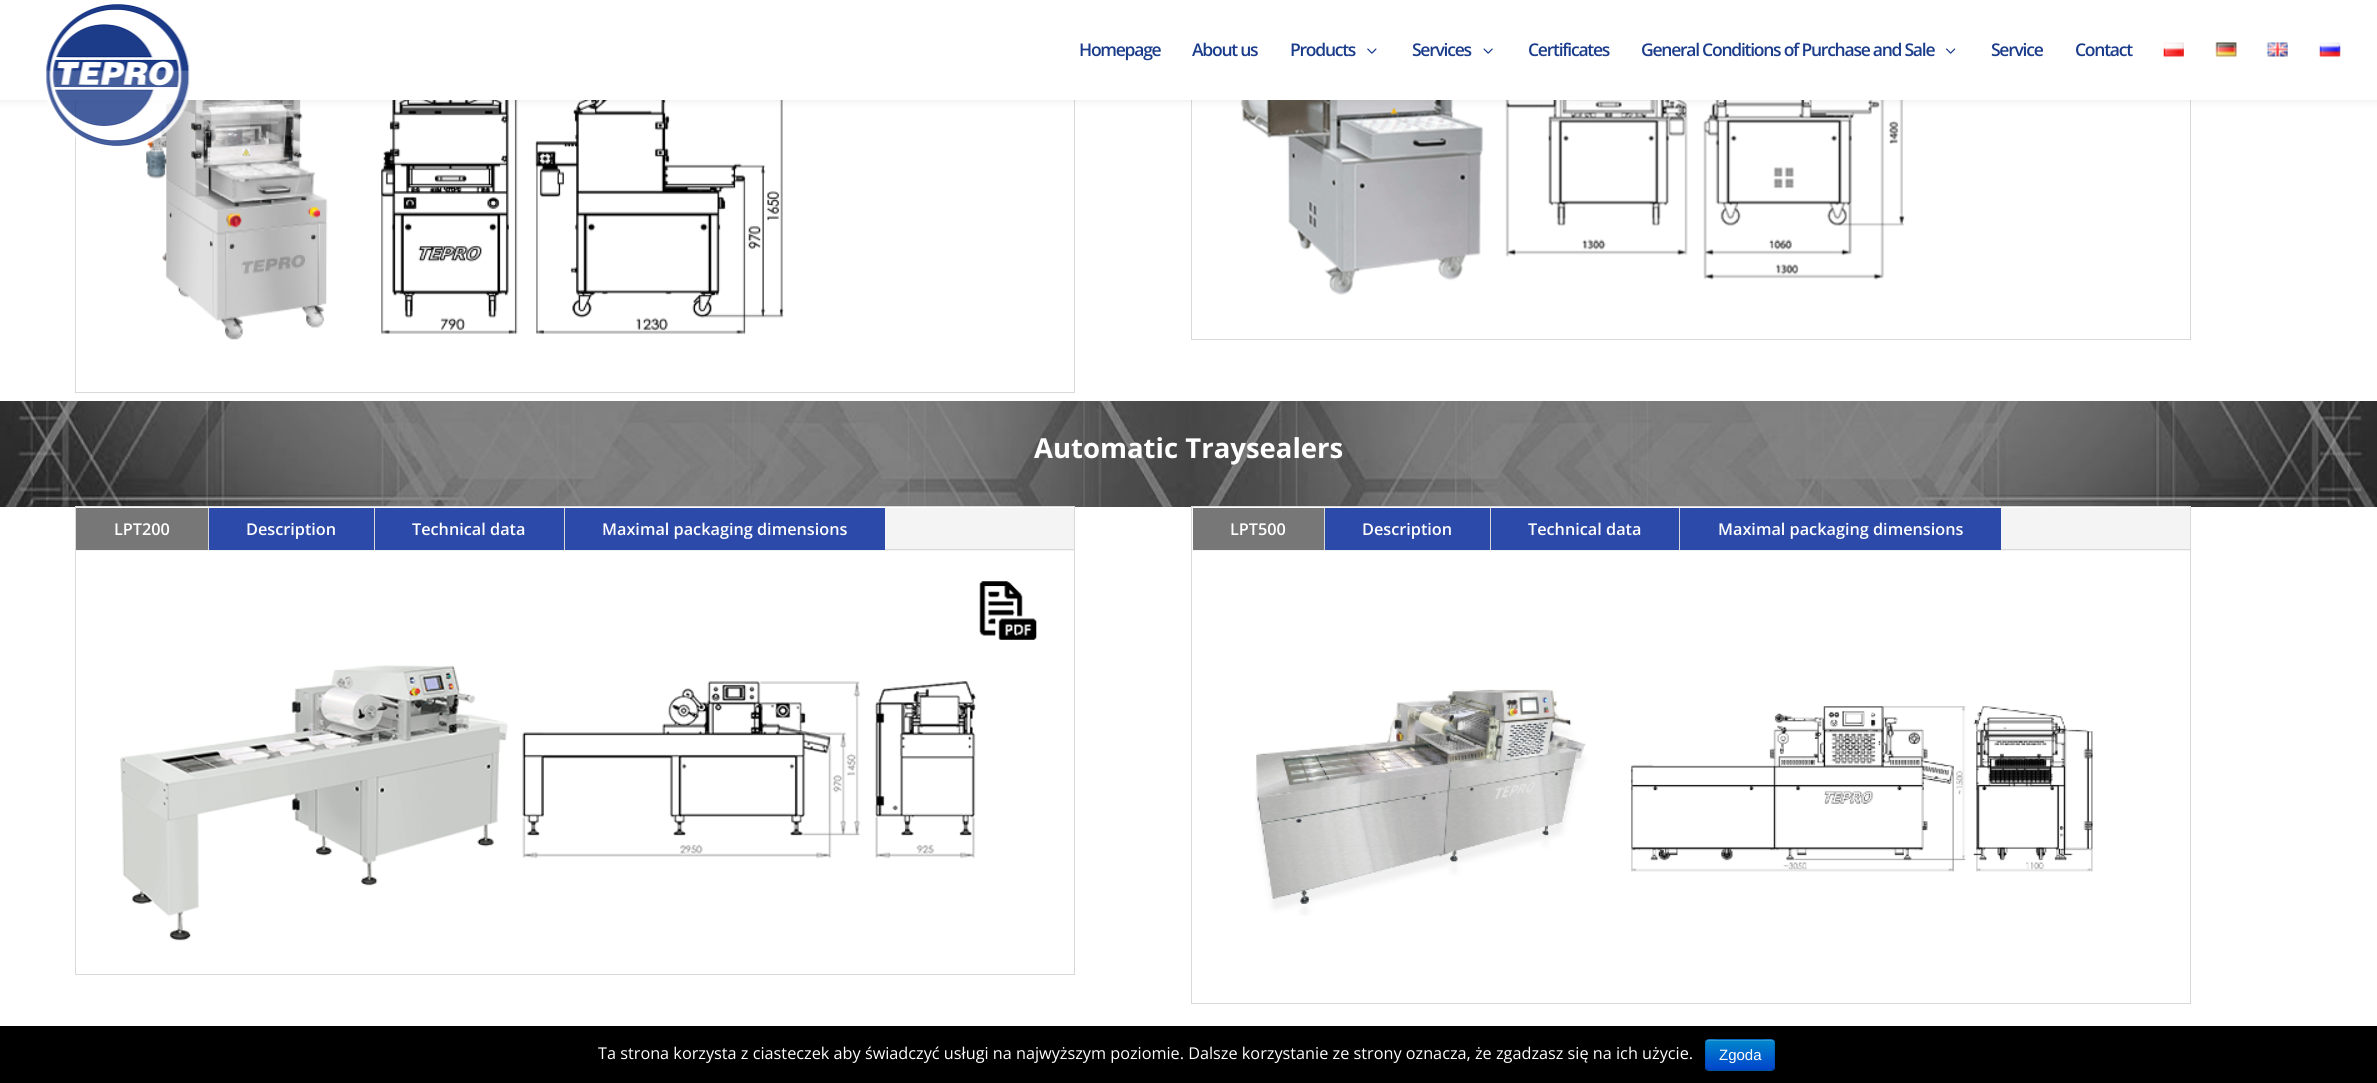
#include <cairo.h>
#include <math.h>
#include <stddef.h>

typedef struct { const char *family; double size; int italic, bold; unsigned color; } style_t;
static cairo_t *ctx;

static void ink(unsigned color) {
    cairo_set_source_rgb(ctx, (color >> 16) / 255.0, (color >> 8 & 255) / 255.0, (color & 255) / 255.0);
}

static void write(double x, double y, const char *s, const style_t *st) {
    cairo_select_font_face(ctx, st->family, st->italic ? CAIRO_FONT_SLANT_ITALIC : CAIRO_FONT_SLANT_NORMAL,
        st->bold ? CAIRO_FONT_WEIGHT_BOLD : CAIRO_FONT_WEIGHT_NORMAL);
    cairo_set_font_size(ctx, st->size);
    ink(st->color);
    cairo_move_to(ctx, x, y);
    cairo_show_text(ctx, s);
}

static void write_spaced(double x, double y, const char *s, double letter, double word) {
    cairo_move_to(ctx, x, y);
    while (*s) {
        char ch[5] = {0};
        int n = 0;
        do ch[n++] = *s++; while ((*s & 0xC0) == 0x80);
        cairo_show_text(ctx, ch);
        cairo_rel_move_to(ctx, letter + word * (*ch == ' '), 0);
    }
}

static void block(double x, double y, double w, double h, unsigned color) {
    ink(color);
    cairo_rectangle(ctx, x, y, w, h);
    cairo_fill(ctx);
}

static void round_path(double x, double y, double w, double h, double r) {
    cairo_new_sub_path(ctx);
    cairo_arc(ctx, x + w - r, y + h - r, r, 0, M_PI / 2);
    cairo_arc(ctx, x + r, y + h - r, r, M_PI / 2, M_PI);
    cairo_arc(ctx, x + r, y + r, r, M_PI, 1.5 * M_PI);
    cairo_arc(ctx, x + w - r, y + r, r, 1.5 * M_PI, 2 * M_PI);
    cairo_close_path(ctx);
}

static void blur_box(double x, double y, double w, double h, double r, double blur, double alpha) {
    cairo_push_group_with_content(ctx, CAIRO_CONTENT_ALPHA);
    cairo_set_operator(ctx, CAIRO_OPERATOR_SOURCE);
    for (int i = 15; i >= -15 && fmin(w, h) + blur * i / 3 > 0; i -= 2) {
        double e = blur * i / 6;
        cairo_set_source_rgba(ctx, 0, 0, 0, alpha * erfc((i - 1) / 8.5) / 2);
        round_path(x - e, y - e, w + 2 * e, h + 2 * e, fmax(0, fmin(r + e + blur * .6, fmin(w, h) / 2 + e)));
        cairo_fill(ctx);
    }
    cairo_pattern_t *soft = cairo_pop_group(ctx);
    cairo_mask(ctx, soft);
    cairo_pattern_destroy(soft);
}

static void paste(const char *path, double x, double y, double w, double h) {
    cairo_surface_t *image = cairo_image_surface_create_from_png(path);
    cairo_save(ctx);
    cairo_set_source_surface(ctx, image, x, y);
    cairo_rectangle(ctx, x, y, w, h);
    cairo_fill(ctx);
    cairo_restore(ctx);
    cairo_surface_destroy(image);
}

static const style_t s1 = {"Open Sans", 27.5, 0, 1, 0xffffff};
static const style_t s2 = {"Open Sans SemiBold", 16.25, 0, 0, 0xffffff};
static const style_t s3 = {"Open Sans", 16.25, 0, 0, 0xffffff};
static const style_t s4 = {"Liberation Sans", 15, 0, 0, 0xffffff};

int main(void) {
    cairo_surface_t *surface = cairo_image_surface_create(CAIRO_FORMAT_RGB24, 2377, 1083);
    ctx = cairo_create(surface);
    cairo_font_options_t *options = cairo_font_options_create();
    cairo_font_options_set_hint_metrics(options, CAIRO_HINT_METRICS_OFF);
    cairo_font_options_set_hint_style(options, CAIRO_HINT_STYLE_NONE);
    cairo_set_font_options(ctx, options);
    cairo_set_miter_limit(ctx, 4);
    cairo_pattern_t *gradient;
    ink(0xffffff);
    cairo_paint(ctx);
    cairo_rectangle(ctx, 75.5, -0.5, 999, 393);
    ink(0xd9d9d9);
    cairo_set_line_width(ctx, 1);
    cairo_stroke(ctx);
    paste("pic9.png", 146, 100, 638, 240);
    cairo_rectangle(ctx, 1191.5, -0.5, 999, 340);
    cairo_stroke(ctx);
    paste("pic10.png", 1240, 100, 665, 195);
    ink(0x000000);
    blur_box(0, 0, 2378, 100, 0, 4.5, 0.1);
    block(0, 0, 2377, 100, 0xffffff);
    paste("pic1.png", 46, 4, 144, 142);
    cairo_select_font_face(ctx, "Open Sans SemiBold", CAIRO_FONT_SLANT_NORMAL, CAIRO_FONT_WEIGHT_NORMAL);
    cairo_set_font_size(ctx, 17.5);
    ink(0x1b3c8b);
    write_spaced(1079, 56, "Homepage", -1.25, 0);
    write_spaced(1192, 56, "About us", -1.25, 0);
    write_spaced(1290, 56, "Products", -1.25, 0);
    paste("pic2.png", 1367, 48, 10, 6);
    write_spaced(1412, 56, "Services", -1.25, 0);
    paste("pic3.png", 1483, 48, 10, 6);
    write_spaced(1528, 56, "Certificates", -1.25, 0);
    write_spaced(1641, 56, "General Conditions of Purchase and Sale", -1.25, 0);
    paste("pic4.png", 1946, 48, 10, 6);
    write_spaced(1991, 56, "Service", -1.25, 0);
    write_spaced(2075, 56, "Contact", -1.25, 0);
    paste("pic5.png", 2163, 42, 21, 15);
    paste("pic6.png", 2215, 42, 22, 15);
    paste("pic7.png", 2266, 42, 22, 15);
    paste("pic8.png", 2319, 42, 22, 15);
    paste("pic11.png", 0, 401, 2377, 106);
    write(1034, 458, "Automatic Traysealers", &s1);
    cairo_rectangle(ctx, 75.5, 506.5, 999, 468);
    ink(0xd9d9d9);
    cairo_stroke(ctx);
    block(76, 508, 998, 43, 0xf4f4f4);
    block(76, 508, 132, 42, 0x777777);
    block(208, 508, 1, 42, 0xd9d9d9);
    write(114, 535, "LPT200", &s2);
    block(209, 508, 165, 42, 0x2c4aa9);
    block(374, 508, 1, 42, 0xd9d9d9);
    write(246, 535, "Description", &s2);
    block(375, 508, 189, 42, 0x2c4aa9);
    block(564, 508, 1, 42, 0xd9d9d9);
    write(412, 535, "Technical data", &s2);
    block(565, 508, 320, 42, 0x2c4aa9);
    write(602, 535, "Maximal packaging dimensions", &s2);
    block(885, 549, 189, 1, 0xd9d9d9);
    paste("pic12.png", 979, 581, 58, 59);
    paste("pic13.png", 120, 665, 857, 276);
    cairo_rectangle(ctx, 1191.5, 506.5, 999, 497);
    cairo_stroke(ctx);
    block(1193, 508, 997, 43, 0xf4f4f4);
    block(1193, 508, 131, 42, 0x777777);
    block(1324, 508, 1, 42, 0xd9d9d9);
    write(1230, 535, "LPT500", &s2);
    block(1325, 508, 165, 42, 0x2c4aa9);
    block(1490, 508, 1, 42, 0xd9d9d9);
    write(1362, 535, "Description", &s2);
    block(1491, 508, 188, 42, 0x2c4aa9);
    block(1679, 508, 1, 42, 0xd9d9d9);
    write(1528, 535, "Technical data", &s2);
    block(1680, 508, 321, 42, 0x2c4aa9);
    write(1718, 535, "Maximal packaging dimensions", &s2);
    block(2001, 549, 189, 1, 0xd9d9d9);
    paste("pic14.png", 1255, 689, 838, 227);
    block(0, 1026, 2377, 57, 0x000000);
    write(598, 1059, "Ta strona korzysta z ciasteczek aby świadczyć usługi na najwyższym poziomie. Dalsze korzystanie ze strony oznacza, że zgadzasz się na ich użycie.", &s3);
    ink(0x006dcc);
    round_path(1705, 1039, 70, 32, 4);
    cairo_fill(ctx);
    cairo_save(ctx);
    round_path(1705, 1039, 70, 32, 4);
    cairo_clip(ctx);
    gradient = cairo_pattern_create_linear(1740, 1040, 1740, 1070);
    cairo_pattern_add_color_stop_rgba(gradient, 0, 0, 0.533, 0.8, 1);
    cairo_pattern_add_color_stop_rgba(gradient, 1, 0, 0.267, 0.8, 1);
    cairo_set_source(ctx, gradient);
    cairo_pattern_destroy(gradient);
    cairo_rectangle(ctx, 1705, 1040, 70, 30);
    cairo_fill(ctx);
    cairo_restore(ctx);
    cairo_set_source_rgba(ctx, 1, 1, 1, 0.2);
    cairo_new_path(ctx);
    cairo_move_to(ctx, 1709, 1041);
    cairo_line_to(ctx, 1771, 1041);
    cairo_curve_to(ctx, 1773, 1041, 1774, 1042, 1774, 1044);
    cairo_curve_to(ctx, 1774, 1037, 1767, 1040, 1761, 1040);
    cairo_line_to(ctx, 1719, 1040);
    cairo_curve_to(ctx, 1713, 1040, 1706, 1037, 1706, 1044);
    cairo_curve_to(ctx, 1706, 1042, 1707, 1041, 1709, 1041);
    cairo_close_path(ctx);
    cairo_fill(ctx);
    cairo_new_path(ctx);
    cairo_move_to(ctx, 1773.5, 1069.5);
    cairo_line_to(ctx, 1771, 1070.5);
    cairo_line_to(ctx, 1709, 1070.5);
    cairo_line_to(ctx, 1706.5, 1069.5);
    cairo_set_source_rgba(ctx, 0, 0, 0, 0.25);
    cairo_set_line_width(ctx, 1.2);
    cairo_stroke(ctx);
    cairo_new_path(ctx);
    cairo_move_to(ctx, 1706.5, 1069.5);
    cairo_curve_to(ctx, 1704.5, 1067.5, 1705.5, 1058, 1705.5, 1055);
    cairo_curve_to(ctx, 1705.5, 1038, 1702.5, 1039.5, 1719, 1039.5);
    cairo_line_to(ctx, 1761, 1039.5);
    cairo_curve_to(ctx, 1777.5, 1039.5, 1774.5, 1038, 1774.5, 1055);
    cairo_curve_to(ctx, 1774.5, 1058, 1775.5, 1067.5, 1773.5, 1069.5);
    cairo_set_source_rgba(ctx, 0, 0, 0, 0.1);
    cairo_stroke(ctx);
    write(1719, 1060, "Zgoda", &s4);
    cairo_surface_write_to_png(surface, "screenshot.png");
    cairo_font_options_destroy(options);
    cairo_destroy(ctx);
    cairo_surface_destroy(surface);
    return 0;
}
